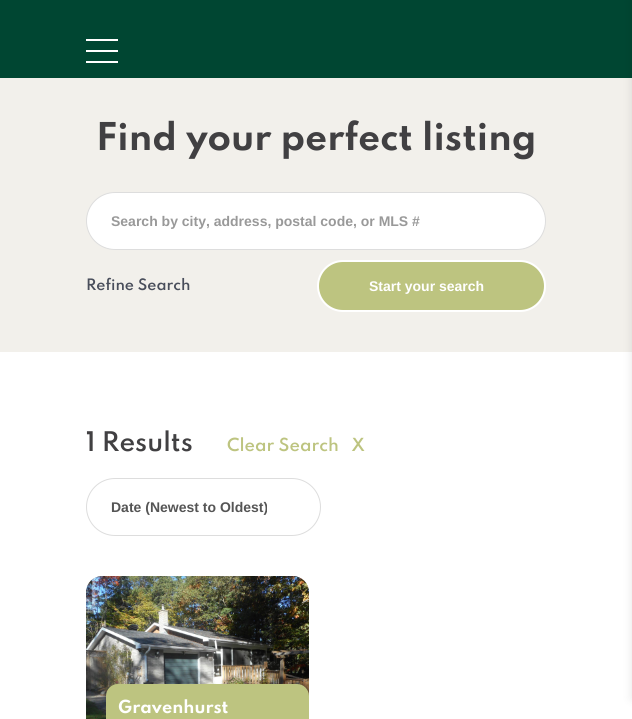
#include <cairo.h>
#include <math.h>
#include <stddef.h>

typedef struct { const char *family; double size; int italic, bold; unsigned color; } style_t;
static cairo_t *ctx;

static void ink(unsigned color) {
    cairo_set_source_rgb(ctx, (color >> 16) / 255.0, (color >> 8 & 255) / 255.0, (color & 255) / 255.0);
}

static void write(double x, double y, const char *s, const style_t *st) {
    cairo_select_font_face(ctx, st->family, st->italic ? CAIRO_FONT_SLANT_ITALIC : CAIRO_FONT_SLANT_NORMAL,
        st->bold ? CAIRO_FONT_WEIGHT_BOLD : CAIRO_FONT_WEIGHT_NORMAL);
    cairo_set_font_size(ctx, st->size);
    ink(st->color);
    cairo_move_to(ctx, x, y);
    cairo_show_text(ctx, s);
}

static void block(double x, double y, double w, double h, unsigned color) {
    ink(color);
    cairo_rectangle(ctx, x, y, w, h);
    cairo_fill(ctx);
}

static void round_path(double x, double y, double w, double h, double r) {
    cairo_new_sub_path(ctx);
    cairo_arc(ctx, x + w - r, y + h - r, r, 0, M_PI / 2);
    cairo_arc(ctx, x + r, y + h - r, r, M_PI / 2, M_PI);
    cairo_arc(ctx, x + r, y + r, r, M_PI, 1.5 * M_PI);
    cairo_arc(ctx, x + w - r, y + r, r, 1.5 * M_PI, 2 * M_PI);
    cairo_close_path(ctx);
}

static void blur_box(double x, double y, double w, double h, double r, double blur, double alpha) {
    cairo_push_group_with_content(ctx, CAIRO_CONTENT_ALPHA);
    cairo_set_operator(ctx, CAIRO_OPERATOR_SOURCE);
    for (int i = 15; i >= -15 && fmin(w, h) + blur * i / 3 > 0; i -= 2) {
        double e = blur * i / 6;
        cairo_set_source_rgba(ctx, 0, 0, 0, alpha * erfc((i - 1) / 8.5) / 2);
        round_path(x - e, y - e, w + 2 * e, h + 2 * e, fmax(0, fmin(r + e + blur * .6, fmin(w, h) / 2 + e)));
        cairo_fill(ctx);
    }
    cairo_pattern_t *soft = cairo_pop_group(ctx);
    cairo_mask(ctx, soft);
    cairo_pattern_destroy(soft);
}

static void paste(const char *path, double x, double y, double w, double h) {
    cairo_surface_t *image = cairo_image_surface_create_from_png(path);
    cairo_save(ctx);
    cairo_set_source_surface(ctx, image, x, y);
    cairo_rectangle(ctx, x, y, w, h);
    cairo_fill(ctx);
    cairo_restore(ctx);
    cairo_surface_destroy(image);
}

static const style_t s1 = {"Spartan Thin", 34, 0, 1, 0x414042};
static const style_t s2 = {"Liberation Sans", 14, 0, 1, 0x999999};
static const style_t s3 = {"Spartan Thin SemiBold", 14, 0, 0, 0x494e5b};
static const style_t s4 = {"Liberation Sans", 14, 0, 1, 0xffffff};
static const style_t s5 = {"Spartan Thin SemiBold", 24, 0, 0, 0x414042};
static const style_t s6 = {"Spartan Thin SemiBold", 16, 0, 0, 0xbdc480};
static const style_t s7 = {"Liberation Sans", 14, 0, 1, 0x555555};
static const style_t s8 = {"Spartan Thin", 16, 0, 1, 0xffffff};

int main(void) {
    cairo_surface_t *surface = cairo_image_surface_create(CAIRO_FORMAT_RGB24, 632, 719);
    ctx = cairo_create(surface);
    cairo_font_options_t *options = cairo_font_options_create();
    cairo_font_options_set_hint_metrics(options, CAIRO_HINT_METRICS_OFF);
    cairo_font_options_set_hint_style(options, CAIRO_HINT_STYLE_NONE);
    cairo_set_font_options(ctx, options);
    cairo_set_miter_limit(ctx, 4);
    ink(0xffffff);
    cairo_paint(ctx);
    block(0, 0, 632, 78, 0x004632);
    block(86, 39, 32, 2, 0xffffff);
    block(86, 50, 32, 2, 0xffffff);
    block(86, 61, 32, 2, 0xffffff);
    block(0, 78, 632, 274, 0xf2f0eb);
    write(96, 150, "Find your perfect listing", &s1);
    ink(0xffffff);
    round_path(86.5, 192.5, 459, 57, 28.5);
    cairo_fill_preserve(ctx);
    ink(0xdddddd);
    cairo_set_line_width(ctx, 1);
    cairo_stroke(ctx);
    write(111, 226, "Search by city, address, postal code, or MLS #", &s2);
    write(86, 290, "Refine Search", &s3);
    ink(0xbdc480);
    round_path(318, 261, 227, 50, 25);
    cairo_fill_preserve(ctx);
    ink(0xffffff);
    cairo_set_line_width(ctx, 2);
    cairo_stroke(ctx);
    write(369, 291, "Start your search", &s4);
    write(86, 451, "1 Results", &s5);
    write(227, 451, "Clear Search   X", &s6);
    round_path(86.5, 478.5, 234, 57, 28.5);
    ink(0xdddddd);
    cairo_set_line_width(ctx, 1);
    cairo_stroke(ctx);
    write(111, 512, "Date (Newest to Oldest)", &s7);
    paste("pic1.png", 86, 576, 223, 143);
    ink(0xbdc480);
    round_path(106, 684, 203, 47, 12);
    cairo_fill(ctx);
    write(118, 713, "Gravenhurst", &s8);
    ink(0x000000);
    blur_box(632, 0, 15, 699, 0, 5, 0.1);
    cairo_surface_write_to_png(surface, "screenshot.png");
    cairo_font_options_destroy(options);
    cairo_destroy(ctx);
    cairo_surface_destroy(surface);
    return 0;
}
